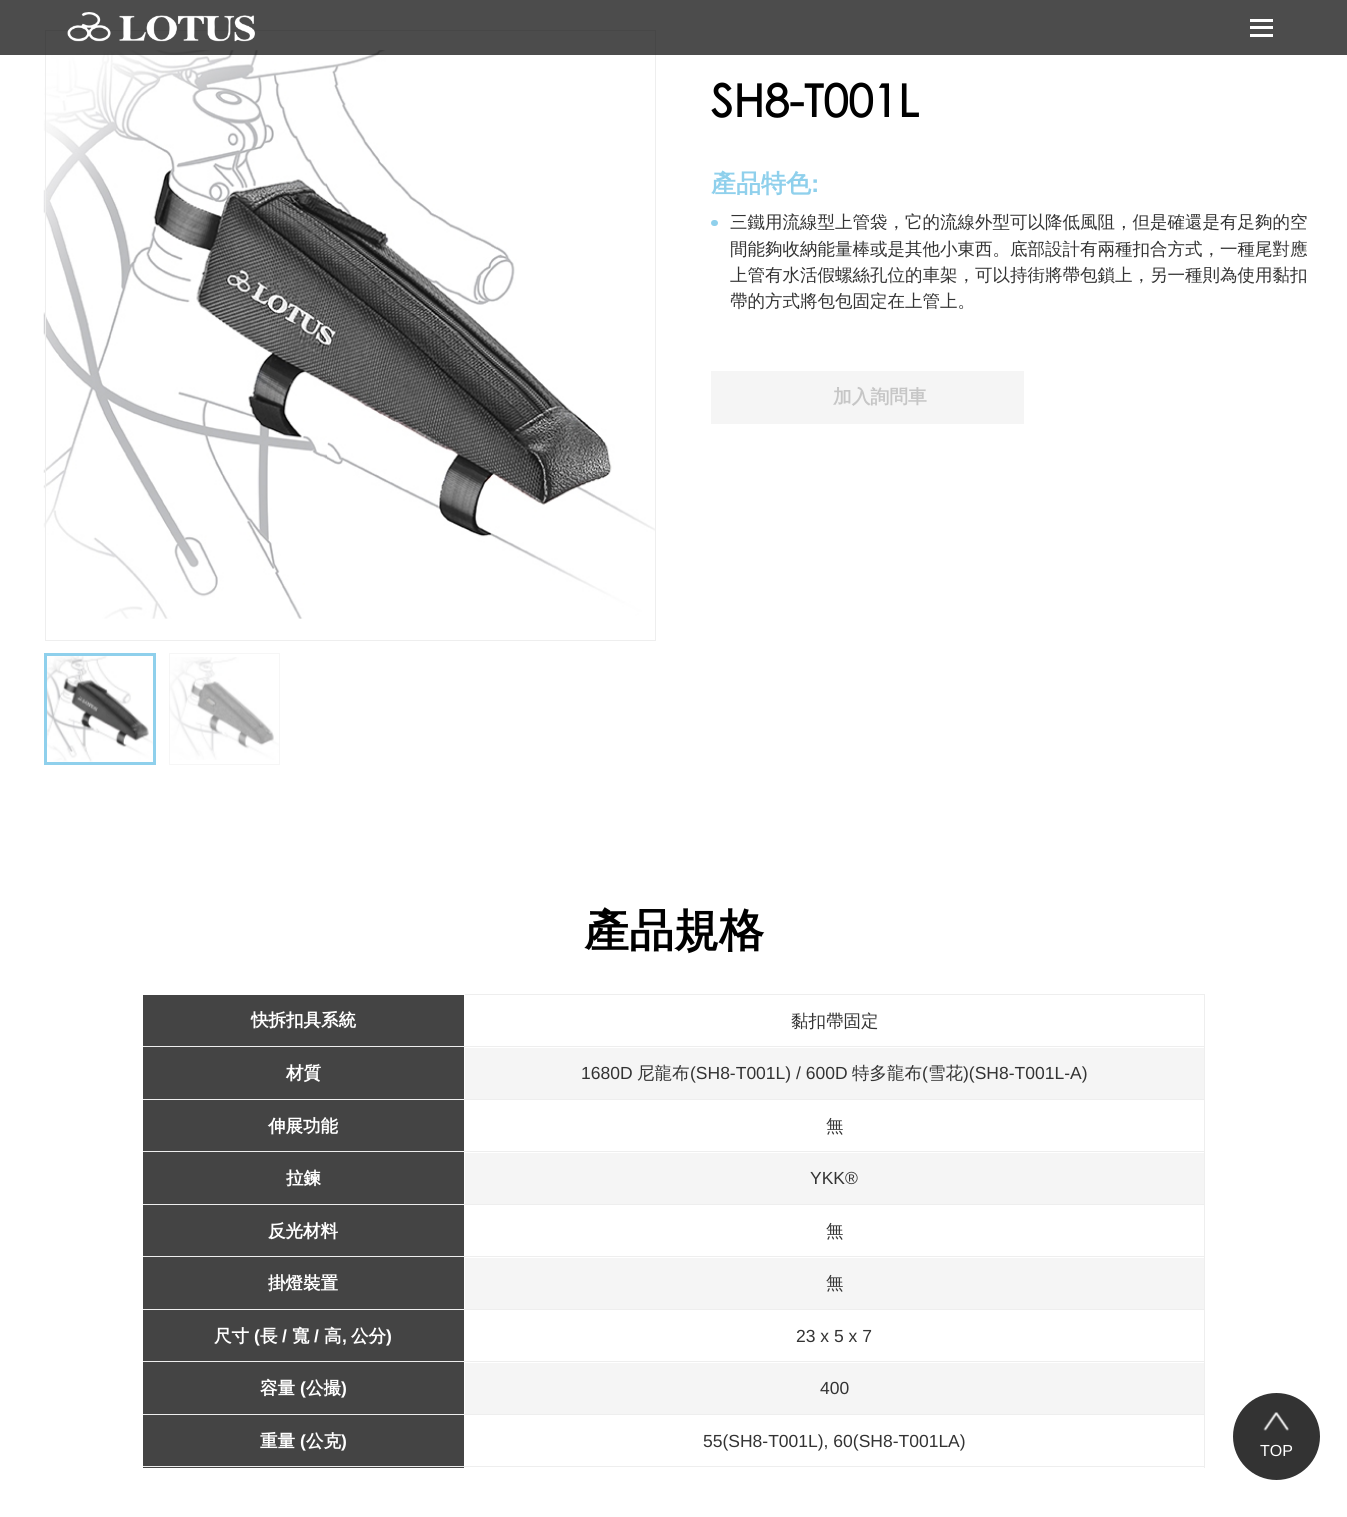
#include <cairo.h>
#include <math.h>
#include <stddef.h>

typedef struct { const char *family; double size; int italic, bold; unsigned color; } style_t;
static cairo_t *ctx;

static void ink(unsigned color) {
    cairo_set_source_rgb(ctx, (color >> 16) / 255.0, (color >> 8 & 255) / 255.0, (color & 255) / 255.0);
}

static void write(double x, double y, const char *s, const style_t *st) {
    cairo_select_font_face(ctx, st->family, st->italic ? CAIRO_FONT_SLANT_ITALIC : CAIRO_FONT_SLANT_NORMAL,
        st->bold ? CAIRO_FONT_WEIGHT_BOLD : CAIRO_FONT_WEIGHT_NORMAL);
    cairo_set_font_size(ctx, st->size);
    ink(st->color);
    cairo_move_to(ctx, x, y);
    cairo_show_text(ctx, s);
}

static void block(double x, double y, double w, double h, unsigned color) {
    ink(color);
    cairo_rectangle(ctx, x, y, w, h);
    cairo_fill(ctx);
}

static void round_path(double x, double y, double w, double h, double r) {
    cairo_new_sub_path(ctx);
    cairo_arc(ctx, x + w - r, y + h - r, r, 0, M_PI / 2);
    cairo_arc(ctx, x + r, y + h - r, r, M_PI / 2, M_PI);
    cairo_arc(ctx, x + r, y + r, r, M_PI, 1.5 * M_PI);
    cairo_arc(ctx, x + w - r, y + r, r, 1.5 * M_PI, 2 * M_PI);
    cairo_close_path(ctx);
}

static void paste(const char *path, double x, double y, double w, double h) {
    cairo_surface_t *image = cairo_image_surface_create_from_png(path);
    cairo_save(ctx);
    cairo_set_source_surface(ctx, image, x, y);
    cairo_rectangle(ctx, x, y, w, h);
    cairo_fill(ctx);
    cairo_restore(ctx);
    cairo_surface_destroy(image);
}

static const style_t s1 = {"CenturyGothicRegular", 45, 0, 1, 0x000000};
static const style_t s2 = {"WenQuanYi Zen Hei", 25, 0, 1, 0x8fd0ec};
static const style_t s3 = {"Liberation Sans", 25, 0, 1, 0x8fd0ec};
static const style_t s4 = {"WenQuanYi Zen Hei Medium", 17.5, 0, 0, 0x333333};
static const style_t s5 = {"WenQuanYi Zen Hei", 18.75, 0, 1, 0xc6c6c6};
static const style_t s6 = {"WenQuanYi Zen Hei", 45, 0, 1, 0x000000};
static const style_t s7 = {"WenQuanYi Zen Hei", 17.5, 0, 1, 0xffffff};
static const style_t s8 = {"Liberation Sans", 17.5, 0, 0, 0x333333};
static const style_t s9 = {"Liberation Sans", 17.5, 0, 1, 0xffffff};
static const style_t s10 = {"Liberation Sans", 16, 0, 0, 0xffffff};

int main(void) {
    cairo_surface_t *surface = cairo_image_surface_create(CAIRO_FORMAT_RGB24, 1347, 1517);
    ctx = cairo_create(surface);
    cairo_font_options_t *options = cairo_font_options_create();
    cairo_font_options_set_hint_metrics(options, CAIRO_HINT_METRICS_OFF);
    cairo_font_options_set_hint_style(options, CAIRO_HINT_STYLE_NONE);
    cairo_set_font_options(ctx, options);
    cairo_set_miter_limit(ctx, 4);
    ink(0xffffff);
    cairo_paint(ctx);
    paste("pic2.png", 43, 50, 612, 569);
    cairo_rectangle(ctx, 45.5, 30.5, 610, 610);
    ink(0xeeeeee);
    cairo_set_line_width(ctx, 1);
    cairo_stroke(ctx);
    cairo_set_source_rgba(ctx, 0, 0, 0, 0.7);
    cairo_rectangle(ctx, 0, 0, 1347, 55);
    cairo_fill(ctx);
    paste("pic1.png", 67, 12, 188, 30);
    block(1250, 19, 23, 3, 0xffffff);
    block(1250, 26, 23, 3, 0xffffff);
    block(1250, 34, 23, 3, 0xffffff);
    paste("pic3.png", 47, 656, 106, 106);
    cairo_rectangle(ctx, 45.5, 654.5, 109, 109);
    ink(0x8fd0ec);
    cairo_set_line_width(ctx, 3);
    cairo_stroke(ctx);
    paste("pic4.png", 169, 657, 110, 103);
    cairo_rectangle(ctx, 169.5, 653.5, 110, 111);
    cairo_set_source_rgba(ctx, 0.933, 0.933, 0.933, 0.5);
    cairo_set_line_width(ctx, 1);
    cairo_stroke(ctx);
    write(711, 117, "SH8-T001L", &s1);
    write(711, 192, "產品特色", &s2);
    write(811, 192, ":", &s3);
    round_path(711, 220, 7, 6, 3);
    cairo_fill(ctx);
    write(730, 228, "三鐵用流線型上管袋，它的流線外型可以降低風阻，但是確還是有足夠的空", &s4);
    write(730, 255, "間能夠收納能量棒或是其他小東西。底部設計有兩種扣合方式，一種尾對應", &s4);
    write(730, 281, "上管有水活假螺絲孔位的車架，可以持街將帶包鎖上，另一種則為使用黏扣", &s4);
    write(730, 307, "帶的方式將包包固定在上管上。", &s4);
    block(711, 371, 313, 53, 0xf5f5f5);
    write(833, 403, "加入詢問車", &s5);
    write(584, 946, "產品規格", &s6);
    block(143, 1415, 321, 53, 0x444444);
    block(143, 1466, 1062, 1, 0xeeeeee);
    block(143, 995, 321, 104, 0x444444);
    block(464, 994, 741, 1, 0xeeeeee);
    block(1204, 1046, 1, 422, 0xeeeeee);
    block(1204, 994, 1, 54, 0xeeeeee);
    block(464, 1046, 741, 1, 0xeeeeee);
    block(464, 994, 1, 54, 0xffffff);
    block(143, 1046, 322, 1, 0xeeeeee);
    write(251, 1026, "快拆扣具系統", &s7);
    write(791, 1027, "黏扣帶固定", &s4);
    block(464, 1099, 741, 1, 0xeeeeee);
    block(464, 1099, 1, 1, 0xffffff);
    block(143, 1099, 322, 1, 0xeeeeee);
    write(286, 1079, "材質", &s7);
    block(465, 1048, 739, 51, 0xf5f5f5);
    write(581, 1079, "1680D", &s8);
    write(637, 1079, "尼龍布", &s4);
    write(690, 1079, "(SH8-T001L) / 600D", &s8);
    write(852, 1079, "特多龍布", &s4);
    write(922, 1079, "(", &s8);
    write(928, 1079, "雪花", &s4);
    write(963, 1079, ")(SH8-T001L-A)", &s8);
    block(143, 1100, 321, 104, 0x444444);
    block(464, 1151, 741, 1, 0xeeeeee);
    block(464, 1151, 1, 2, 0xffffff);
    block(143, 1151, 322, 1, 0xeeeeee);
    write(268, 1132, "伸展功能", &s7);
    write(826, 1132, "無", &s4);
    block(464, 1204, 741, 1, 0xeeeeee);
    block(464, 1204, 1, 1, 0xffffff);
    block(143, 1204, 322, 1, 0xeeeeee);
    write(286, 1184, "拉鍊", &s7);
    block(465, 1153, 739, 51, 0xf5f5f5);
    write(810, 1184, "YKK®", &s8);
    block(143, 1205, 321, 104, 0x444444);
    block(464, 1256, 741, 1, 0xeeeeee);
    block(464, 1256, 1, 2, 0xffffff);
    block(143, 1256, 322, 1, 0xeeeeee);
    write(268, 1237, "反光材料", &s7);
    write(826, 1237, "無", &s4);
    block(464, 1309, 741, 1, 0xeeeeee);
    block(464, 1309, 1, 1, 0xffffff);
    block(143, 1309, 322, 1, 0xeeeeee);
    write(268, 1289, "掛燈裝置", &s7);
    block(465, 1258, 739, 51, 0xf5f5f5);
    write(826, 1289, "無", &s4);
    block(143, 1310, 321, 104, 0x444444);
    block(464, 1361, 741, 1, 0xeeeeee);
    block(464, 1361, 1, 2, 0xffffff);
    block(143, 1361, 322, 1, 0xeeeeee);
    write(214, 1342, "尺寸", &s7);
    write(254, 1342, "(", &s9);
    write(260, 1342, "長", &s7);
    write(282, 1342, "/", &s9);
    write(292, 1342, "寬", &s7);
    write(314, 1342, "/", &s9);
    write(324, 1342, "高", &s7);
    write(342, 1342, ",", &s9);
    write(351, 1342, "公分", &s7);
    write(386, 1342, ")", &s9);
    write(796, 1342, "23 x 5 x 7", &s8);
    block(464, 1414, 741, 1, 0xeeeeee);
    block(464, 1414, 1, 1, 0xffffff);
    block(143, 1414, 322, 1, 0xeeeeee);
    write(260, 1394, "容量", &s7);
    write(300, 1394, "(", &s9);
    write(306, 1394, "公撮", &s7);
    write(341, 1394, ")", &s9);
    block(465, 1363, 739, 51, 0xf5f5f5);
    write(820, 1394, "400", &s8);
    write(260, 1447, "重量", &s7);
    write(300, 1447, "(", &s9);
    write(306, 1447, "公克", &s7);
    write(341, 1447, ")", &s9);
    write(703, 1447, "55(SH8-T001L), 60(SH8-T001LA)", &s8);
    cairo_new_path(ctx);
    cairo_arc(ctx, 1276.5, 1436.5, 43.5, 0, 2 * M_PI);
    cairo_fill(ctx);
    paste("pic5.png", 1263, 1412, 26, 19);
    write(1260, 1456, "TOP", &s10);
    cairo_surface_write_to_png(surface, "screenshot.png");
    cairo_font_options_destroy(options);
    cairo_destroy(ctx);
    cairo_surface_destroy(surface);
    return 0;
}
